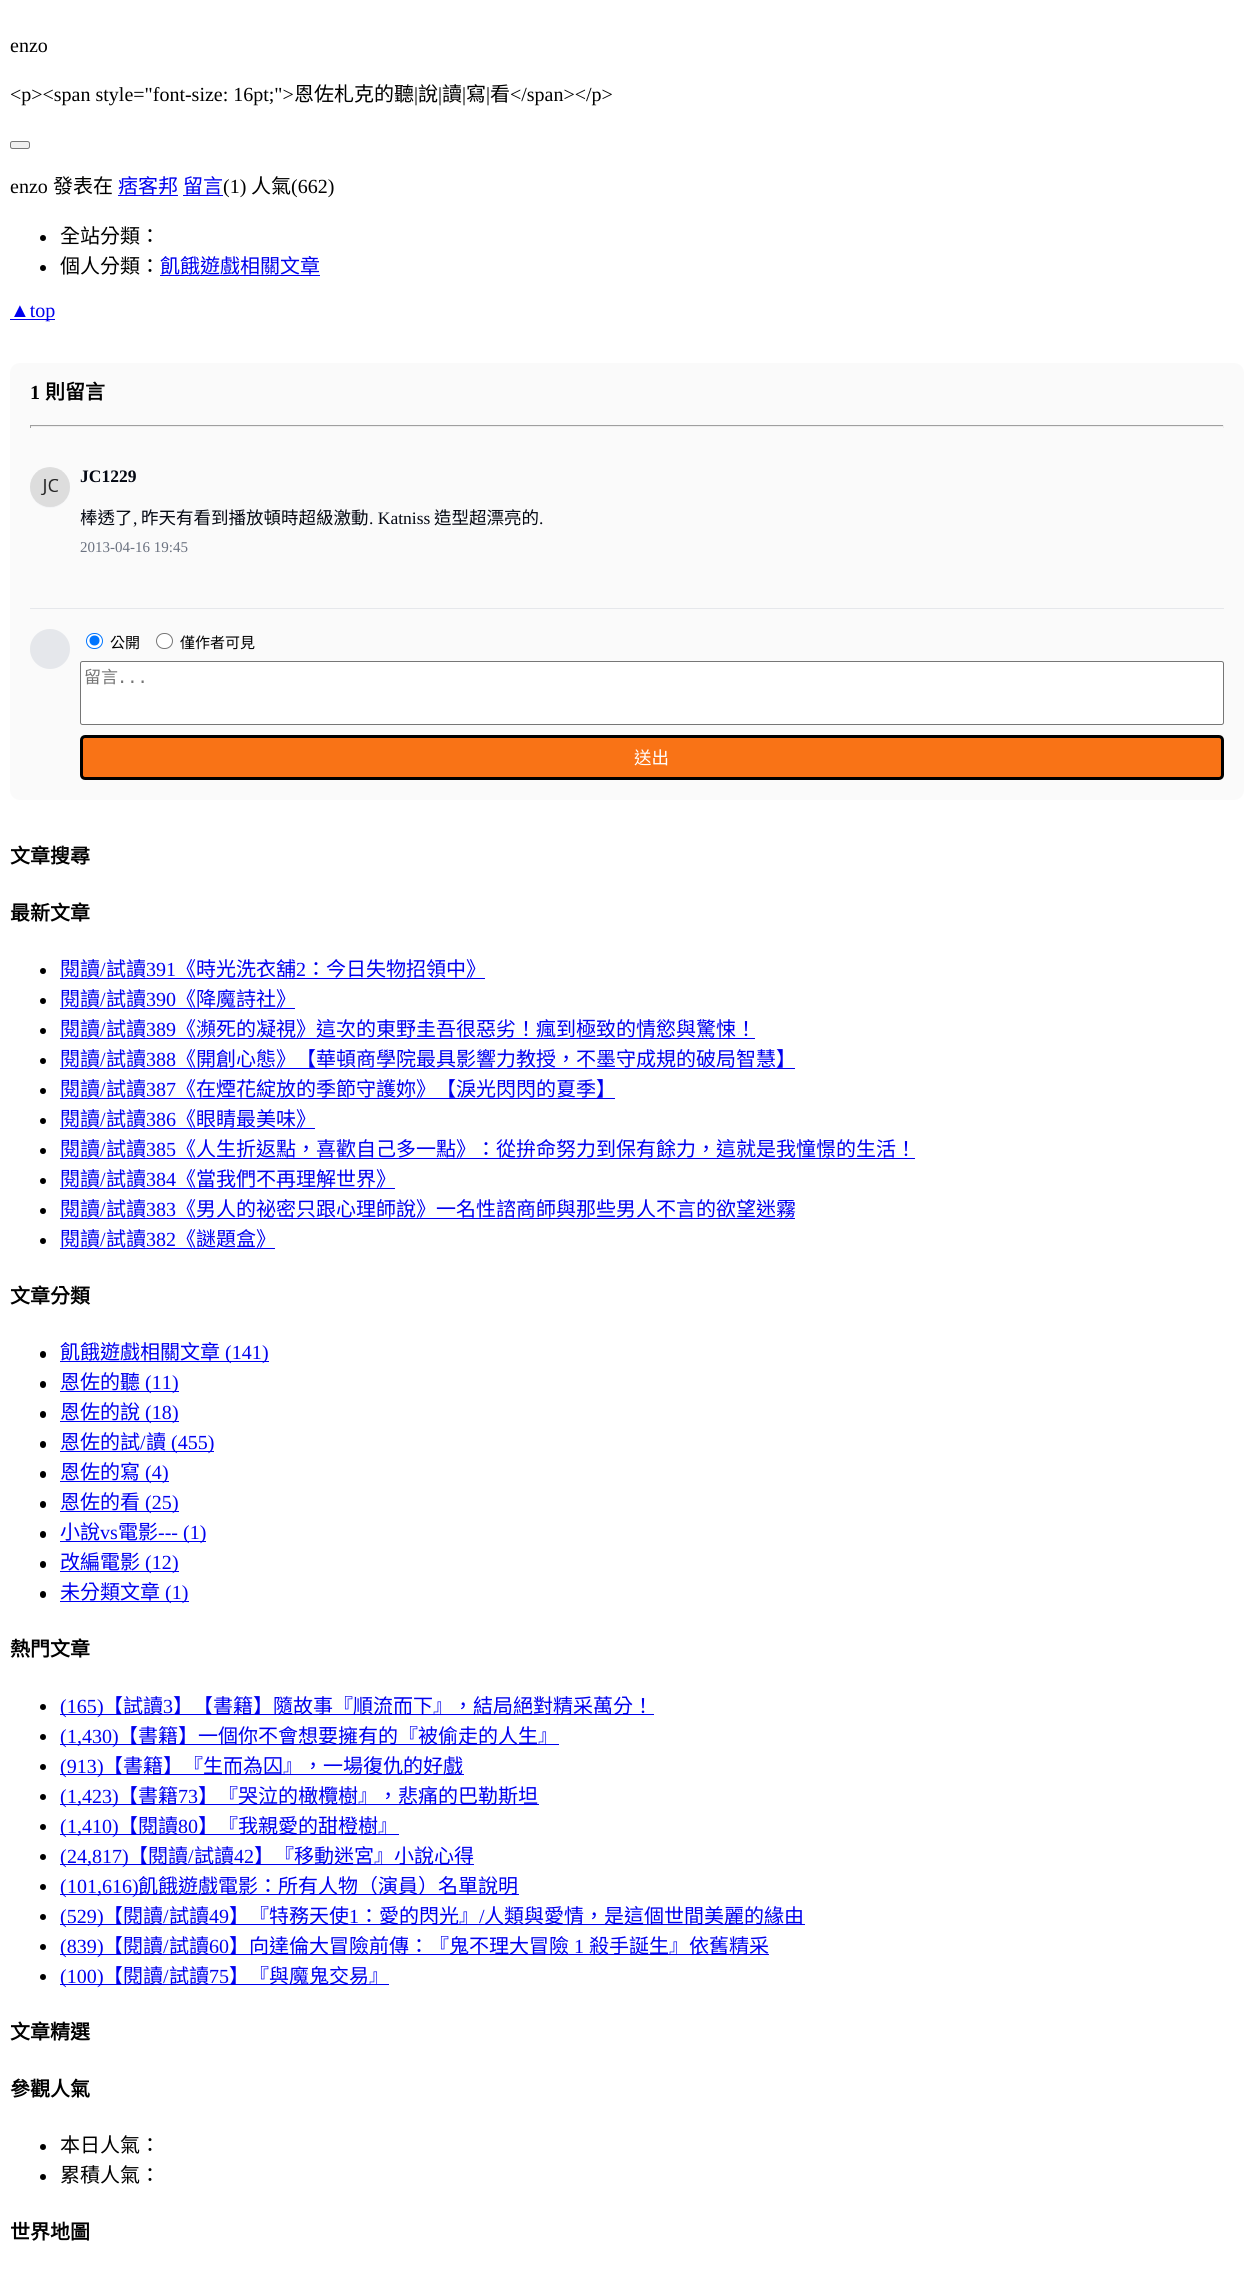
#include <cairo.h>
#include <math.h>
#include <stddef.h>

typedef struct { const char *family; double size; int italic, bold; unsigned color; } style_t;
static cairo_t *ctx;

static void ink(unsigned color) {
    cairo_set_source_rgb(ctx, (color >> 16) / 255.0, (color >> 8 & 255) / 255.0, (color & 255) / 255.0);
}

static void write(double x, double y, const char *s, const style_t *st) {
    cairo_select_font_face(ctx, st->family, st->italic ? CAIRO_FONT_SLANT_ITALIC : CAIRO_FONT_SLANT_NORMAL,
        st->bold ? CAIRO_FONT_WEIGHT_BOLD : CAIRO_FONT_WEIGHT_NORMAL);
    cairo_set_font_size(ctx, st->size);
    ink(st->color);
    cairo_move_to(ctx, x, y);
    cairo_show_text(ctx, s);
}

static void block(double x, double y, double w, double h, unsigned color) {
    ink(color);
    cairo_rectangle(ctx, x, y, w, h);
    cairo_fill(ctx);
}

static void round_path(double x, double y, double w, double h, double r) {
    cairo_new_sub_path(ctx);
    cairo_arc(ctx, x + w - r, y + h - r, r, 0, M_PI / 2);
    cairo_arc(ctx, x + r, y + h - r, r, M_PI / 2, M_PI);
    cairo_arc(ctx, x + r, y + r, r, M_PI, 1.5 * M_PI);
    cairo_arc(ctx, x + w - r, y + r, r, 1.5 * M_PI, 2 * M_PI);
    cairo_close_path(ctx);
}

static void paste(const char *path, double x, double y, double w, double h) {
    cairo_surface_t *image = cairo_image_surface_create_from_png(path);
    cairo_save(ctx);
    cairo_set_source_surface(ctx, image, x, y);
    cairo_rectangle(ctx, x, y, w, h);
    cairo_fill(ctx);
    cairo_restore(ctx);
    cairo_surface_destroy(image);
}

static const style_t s1 = {"Liberation Serif", 20, 0, 0, 0x000000};
static const style_t s2 = {"Noto Sans CJK TC", 20, 0, 0, 0x000000};
static const style_t s3 = {"Noto Sans CJK TC", 20, 0, 0, 0x0000ee};
static const style_t s4 = {"Liberation Serif", 20, 0, 0, 0x0000ee};
static const style_t s5 = {"Liberation Serif", 20, 0, 1, 0x000000};
static const style_t s6 = {"Noto Sans CJK TC", 20, 0, 1, 0x000000};
static const style_t s7 = {"Liberation Serif", 17.5, 0, 1, 0x030712};
static const style_t s8 = {"Noto Sans CJK TC", 17.5, 0, 0, 0x030712};
static const style_t s9 = {"Liberation Serif", 17.5, 0, 0, 0x030712};
static const style_t s10 = {"Liberation Serif", 15, 0, 0, 0x6b7280};
static const style_t s11 = {"Noto Sans CJK TC", 15, 0, 0, 0x000000};
static const style_t s12 = {"Noto Sans CJK TC", 17, 0, 0, 0x757575};
static const style_t s13 = {"DejaVu Sans Mono", 17, 0, 0, 0x757575};
static const style_t s14 = {"Noto Sans CJK TC", 17.5, 0, 0, 0xffffff};

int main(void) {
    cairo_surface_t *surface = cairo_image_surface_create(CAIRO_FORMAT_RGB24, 1253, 2271);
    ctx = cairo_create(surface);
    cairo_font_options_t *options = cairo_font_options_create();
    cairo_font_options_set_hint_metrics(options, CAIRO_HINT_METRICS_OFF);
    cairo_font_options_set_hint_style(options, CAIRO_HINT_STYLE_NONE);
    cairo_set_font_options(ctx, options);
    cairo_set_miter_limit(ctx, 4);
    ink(0xffffff);
    cairo_paint(ctx);
    write(10, 52, "enzo", &s1);
    write(10, 101, "<p><span style=\"font-size: 16pt;\">", &s1);
    write(294, 101, "恩佐札克的聽", &s2);
    write(414, 101, "|", &s1);
    write(418, 101, "說", &s2);
    write(438, 101, "|", &s1);
    write(442, 101, "讀", &s2);
    write(462, 101, "|", &s1);
    write(466, 101, "寫", &s2);
    write(486, 101, "|", &s1);
    write(490, 101, "看", &s2);
    write(510, 101, "</span></p>", &s1);
    ink(0xefefef);
    round_path(10.5, 141.5, 19, 7, 2);
    cairo_fill_preserve(ctx);
    ink(0x767676);
    cairo_set_line_width(ctx, 1);
    cairo_stroke(ctx);
    write(10, 193, "enzo", &s1);
    write(53, 193, "發表在", &s2);
    write(118, 193, "痞客邦", &s3);
    block(118, 195, 60, 1, 0x0000ee);
    write(183, 193, "留言", &s3);
    block(183, 195, 40, 1, 0x0000ee);
    write(223, 193, "(1)", &s1);
    write(251, 193, "人氣", &s2);
    write(291, 193, "(662)", &s1);
    cairo_new_path(ctx);
    cairo_arc(ctx, 43, 238, 3, 0, 2 * M_PI);
    cairo_fill(ctx);
    write(60, 243, "全站分類：", &s2);
    cairo_new_path(ctx);
    cairo_arc(ctx, 43, 268, 3, 0, 2 * M_PI);
    cairo_fill(ctx);
    write(60, 273, "個人分類：", &s2);
    write(160, 273, "飢餓遊戲相關文章", &s3);
    block(160, 275, 160, 1, 0x0000ee);
    block(10, 319, 45, 1, 0x0000ee);
    write(10, 317, "▲top", &s4);
    ink(0xfafafa);
    round_path(10, 363, 1234, 437, 10);
    cairo_fill(ctx);
    write(30, 399, "1", &s5);
    write(45, 399, "則留言", &s6);
    block(30, 425, 1194, 1, 0x9f9f9f);
    block(1223, 425, 1, 3, 0xeeeeee);
    block(30, 426, 1194, 1, 0xeeeeee);
    block(30, 425, 1, 3, 0x9f9f9f);
    ink(0xf3f4f6);
    cairo_new_path(ctx);
    cairo_arc(ctx, 50, 488, 20, 0, 2 * M_PI);
    cairo_fill(ctx);
    paste("pic1.png", 30, 467, 40, 40);
    write(80, 482, "JC1229", &s7);
    write(80, 524, "棒透了", &s8);
    write(133, 524, ",", &s9);
    write(141, 524, "昨天有看到播放頓時超級激動", &s8);
    write(369, 524, ". Katniss", &s9);
    write(434, 524, "造型超漂亮的", &s8);
    write(539, 524, ".", &s9);
    write(80, 552, "2013-04-16 19:45", &s10);
    block(30, 608, 1194, 1, 0xe5e7eb);
    cairo_new_path(ctx);
    cairo_arc(ctx, 50, 649, 20, 0, 2 * M_PI);
    cairo_fill(ctx);
    ink(0xffffff);
    round_path(86.5, 633.5, 16, 15, 7.5);
    cairo_fill_preserve(ctx);
    ink(0x0075ff);
    cairo_stroke(ctx);
    cairo_arc(ctx, 94.5, 640.5, 5, 0, 2 * M_PI);
    cairo_fill(ctx);
    write(110, 648, "公開", &s11);
    ink(0xffffff);
    round_path(156.5, 633.5, 16, 15, 7.5);
    cairo_fill_preserve(ctx);
    ink(0x767676);
    cairo_stroke(ctx);
    write(180, 648, "僅作者可見", &s11);
    ink(0xffffff);
    round_path(80.5, 661.5, 1143, 63, 2);
    cairo_fill_preserve(ctx);
    ink(0x767676);
    cairo_stroke(ctx);
    write(84, 683, "留言", &s12);
    write(117, 683, "...", &s13);
    ink(0xf97316);
    round_path(81.5, 736.5, 1141, 42, 3.5);
    cairo_fill_preserve(ctx);
    ink(0x000000);
    cairo_set_line_width(ctx, 3);
    cairo_stroke(ctx);
    write(634, 764, "送出", &s14);
    write(10, 863, "文章搜尋", &s6);
    write(10, 920, "最新文章", &s6);
    cairo_new_path(ctx);
    cairo_arc(ctx, 43, 971, 3, 0, 2 * M_PI);
    cairo_fill(ctx);
    write(60, 976, "閱讀", &s3);
    write(100, 976, "/", &s4);
    block(60, 978, 425, 1, 0x0000ee);
    write(106, 976, "試讀", &s3);
    write(146, 976, "391", &s4);
    write(176, 976, "《時光洗衣舖", &s3);
    write(296, 976, "2", &s4);
    write(306, 976, "：今日失物招領中》", &s3);
    ink(0x000000);
    cairo_new_path(ctx);
    cairo_arc(ctx, 43, 1001, 3, 0, 2 * M_PI);
    cairo_fill(ctx);
    write(60, 1006, "閱讀", &s3);
    write(100, 1006, "/", &s4);
    block(60, 1008, 235, 1, 0x0000ee);
    write(106, 1006, "試讀", &s3);
    write(146, 1006, "390", &s4);
    write(176, 1006, "《降魔詩社》", &s3);
    ink(0x000000);
    cairo_new_path(ctx);
    cairo_arc(ctx, 43, 1031, 3, 0, 2 * M_PI);
    cairo_fill(ctx);
    write(60, 1036, "閱讀", &s3);
    write(100, 1036, "/", &s4);
    block(60, 1038, 695, 1, 0x0000ee);
    write(106, 1036, "試讀", &s3);
    write(146, 1036, "389", &s4);
    write(176, 1036, "《瀕死的凝視》這次的東野圭吾很惡劣！瘋到極致的情慾與驚悚！", &s3);
    ink(0x000000);
    cairo_new_path(ctx);
    cairo_arc(ctx, 43, 1061, 3, 0, 2 * M_PI);
    cairo_fill(ctx);
    write(60, 1066, "閱讀", &s3);
    write(100, 1066, "/", &s4);
    block(60, 1068, 735, 1, 0x0000ee);
    write(106, 1066, "試讀", &s3);
    write(146, 1066, "388", &s4);
    write(176, 1066, "《開創心態》【華頓商學院最具影響力教授，不墨守成規的破局智慧】", &s3);
    ink(0x000000);
    cairo_new_path(ctx);
    cairo_arc(ctx, 43, 1091, 3, 0, 2 * M_PI);
    cairo_fill(ctx);
    write(60, 1096, "閱讀", &s3);
    write(100, 1096, "/", &s4);
    block(60, 1098, 555, 1, 0x0000ee);
    write(106, 1096, "試讀", &s3);
    write(146, 1096, "387", &s4);
    write(176, 1096, "《在煙花綻放的季節守護妳》【淚光閃閃的夏季】", &s3);
    ink(0x000000);
    cairo_new_path(ctx);
    cairo_arc(ctx, 43, 1121, 3, 0, 2 * M_PI);
    cairo_fill(ctx);
    write(60, 1126, "閱讀", &s3);
    write(100, 1126, "/", &s4);
    block(60, 1128, 255, 1, 0x0000ee);
    write(106, 1126, "試讀", &s3);
    write(146, 1126, "386", &s4);
    write(176, 1126, "《眼睛最美味》", &s3);
    ink(0x000000);
    cairo_new_path(ctx);
    cairo_arc(ctx, 43, 1151, 3, 0, 2 * M_PI);
    cairo_fill(ctx);
    write(60, 1156, "閱讀", &s3);
    write(100, 1156, "/", &s4);
    block(60, 1158, 855, 1, 0x0000ee);
    write(106, 1156, "試讀", &s3);
    write(146, 1156, "385", &s4);
    write(176, 1156, "《人生折返點，喜歡自己多一點》：從拚命努力到保有餘力，這就是我憧憬的生活！", &s3);
    ink(0x000000);
    cairo_new_path(ctx);
    cairo_arc(ctx, 43, 1181, 3, 0, 2 * M_PI);
    cairo_fill(ctx);
    write(60, 1186, "閱讀", &s3);
    write(100, 1186, "/", &s4);
    block(60, 1188, 335, 1, 0x0000ee);
    write(106, 1186, "試讀", &s3);
    write(146, 1186, "384", &s4);
    write(176, 1186, "《當我們不再理解世界》", &s3);
    ink(0x000000);
    cairo_new_path(ctx);
    cairo_arc(ctx, 43, 1211, 3, 0, 2 * M_PI);
    cairo_fill(ctx);
    write(60, 1216, "閱讀", &s3);
    write(100, 1216, "/", &s4);
    block(60, 1218, 735, 1, 0x0000ee);
    write(106, 1216, "試讀", &s3);
    write(146, 1216, "383", &s4);
    write(176, 1216, "《男人的祕密只跟心理師說》一名性諮商師與那些男人不言的欲望迷霧", &s3);
    ink(0x000000);
    cairo_new_path(ctx);
    cairo_arc(ctx, 43, 1241, 3, 0, 2 * M_PI);
    cairo_fill(ctx);
    write(60, 1246, "閱讀", &s3);
    write(100, 1246, "/", &s4);
    block(60, 1248, 215, 1, 0x0000ee);
    write(106, 1246, "試讀", &s3);
    write(146, 1246, "382", &s4);
    write(176, 1246, "《謎題盒》", &s3);
    write(10, 1303, "文章分類", &s6);
    round_path(40, 1351, 6, 7, 3);
    cairo_fill(ctx);
    write(60, 1359, "飢餓遊戲相關文章", &s3);
    block(60, 1361, 171, 1, 0x0000ee);
    write(225, 1359, "(141", &s4);
    block(231, 1361, 38, 1, 0x0000ee);
    write(262, 1359, ")", &s4);
    ink(0x000000);
    round_path(40, 1381, 6, 7, 3);
    cairo_fill(ctx);
    write(60, 1389, "恩佐的聽", &s3);
    block(60, 1391, 91, 1, 0x0000ee);
    write(145, 1389, "(11", &s4);
    block(151, 1391, 28, 1, 0x0000ee);
    write(172, 1389, ")", &s4);
    ink(0x000000);
    round_path(40, 1411, 6, 7, 3);
    cairo_fill(ctx);
    write(60, 1419, "恩佐的說", &s3);
    block(60, 1421, 91, 1, 0x0000ee);
    write(145, 1419, "(18", &s4);
    block(151, 1421, 28, 1, 0x0000ee);
    write(172, 1419, ")", &s4);
    ink(0x000000);
    round_path(40, 1441, 6, 7, 3);
    cairo_fill(ctx);
    write(60, 1449, "恩佐的試", &s3);
    write(140, 1449, "/", &s4);
    write(146, 1449, "讀", &s3);
    block(60, 1451, 154, 1, 0x0000ee);
    write(171, 1449, "(455)", &s4);
    ink(0x000000);
    round_path(40, 1471, 6, 7, 3);
    cairo_fill(ctx);
    write(60, 1479, "恩佐的寫", &s3);
    block(60, 1481, 91, 1, 0x0000ee);
    write(145, 1479, "(4", &s4);
    block(151, 1481, 18, 1, 0x0000ee);
    write(162, 1479, ")", &s4);
    ink(0x000000);
    round_path(40, 1501, 6, 7, 3);
    cairo_fill(ctx);
    write(60, 1509, "恩佐的看", &s3);
    block(60, 1511, 91, 1, 0x0000ee);
    write(145, 1509, "(25", &s4);
    block(151, 1511, 28, 1, 0x0000ee);
    write(172, 1509, ")", &s4);
    ink(0x000000);
    round_path(40, 1531, 6, 7, 3);
    cairo_fill(ctx);
    write(60, 1539, "小說", &s3);
    write(100, 1539, "vs", &s4);
    block(60, 1541, 146, 1, 0x0000ee);
    write(118, 1539, "電影", &s3);
    write(158, 1539, "--- (1)", &s4);
    ink(0x000000);
    round_path(40, 1561, 6, 7, 3);
    cairo_fill(ctx);
    write(60, 1569, "改編電影", &s3);
    block(60, 1571, 91, 1, 0x0000ee);
    write(145, 1569, "(12", &s4);
    block(151, 1571, 28, 1, 0x0000ee);
    write(172, 1569, ")", &s4);
    ink(0x000000);
    round_path(40, 1591, 6, 7, 3);
    cairo_fill(ctx);
    write(60, 1599, "未分類文章", &s3);
    block(60, 1601, 129, 1, 0x0000ee);
    write(165, 1599, "(1)", &s4);
    write(10, 1656, "熱門文章", &s6);
    cairo_new_path(ctx);
    cairo_arc(ctx, 43, 1707, 3, 0, 2 * M_PI);
    cairo_fill(ctx);
    block(60, 1714, 6, 1, 0x0000ee);
    write(60, 1713, "(165", &s4);
    block(66, 1714, 588, 1, 0x0000ee);
    write(97, 1713, ")", &s4);
    write(103, 1713, "【試讀", &s3);
    write(163, 1713, "3", &s4);
    write(173, 1713, "】【書籍】隨故事『順流而下』，結局絕對精采萬分！", &s3);
    ink(0x000000);
    cairo_new_path(ctx);
    cairo_arc(ctx, 43, 1737, 3, 0, 2 * M_PI);
    cairo_fill(ctx);
    block(60, 1744, 6, 1, 0x0000ee);
    write(60, 1743, "(", &s4);
    block(66, 1744, 493, 1, 0x0000ee);
    write(67, 1743, "1,430)", &s4);
    write(118, 1743, "【書籍】一個你不會想要擁有的『被偷走的人生』", &s3);
    ink(0x000000);
    cairo_new_path(ctx);
    cairo_arc(ctx, 43, 1767, 3, 0, 2 * M_PI);
    cairo_fill(ctx);
    block(60, 1774, 6, 1, 0x0000ee);
    write(60, 1773, "(913", &s4);
    block(66, 1774, 398, 1, 0x0000ee);
    write(97, 1773, ")", &s4);
    write(103, 1773, "【書籍】『生而為囚』，一場復仇的好戲", &s3);
    ink(0x000000);
    cairo_new_path(ctx);
    cairo_arc(ctx, 43, 1797, 3, 0, 2 * M_PI);
    cairo_fill(ctx);
    block(60, 1804, 6, 1, 0x0000ee);
    write(60, 1803, "(", &s4);
    block(66, 1804, 473, 1, 0x0000ee);
    write(67, 1803, "1,423)", &s4);
    write(118, 1803, "【書籍", &s3);
    write(178, 1803, "73", &s4);
    write(198, 1803, "】『哭泣的橄欖樹』，悲痛的巴勒斯坦", &s3);
    ink(0x000000);
    cairo_new_path(ctx);
    cairo_arc(ctx, 43, 1827, 3, 0, 2 * M_PI);
    cairo_fill(ctx);
    block(60, 1834, 6, 1, 0x0000ee);
    write(60, 1833, "(", &s4);
    block(66, 1834, 333, 1, 0x0000ee);
    write(67, 1833, "1,410)", &s4);
    write(118, 1833, "【閱讀", &s3);
    write(178, 1833, "80", &s4);
    write(198, 1833, "】『我親愛的甜橙樹』", &s3);
    ink(0x000000);
    cairo_new_path(ctx);
    cairo_arc(ctx, 43, 1857, 3, 0, 2 * M_PI);
    cairo_fill(ctx);
    block(60, 1864, 6, 1, 0x0000ee);
    write(60, 1863, "(", &s4);
    block(66, 1864, 55, 1, 0x0000ee);
    write(67, 1863, "24,817", &s4);
    block(121, 1864, 353, 1, 0x0000ee);
    write(122, 1863, ")", &s4);
    write(128, 1863, "【閱讀", &s3);
    write(188, 1863, "/", &s4);
    write(194, 1863, "試讀", &s3);
    write(234, 1863, "42", &s4);
    write(254, 1863, "】『移動迷宮』小說心得", &s3);
    ink(0x000000);
    cairo_new_path(ctx);
    cairo_arc(ctx, 43, 1887, 3, 0, 2 * M_PI);
    cairo_fill(ctx);
    block(60, 1894, 6, 1, 0x0000ee);
    write(60, 1893, "(", &s4);
    block(66, 1894, 65, 1, 0x0000ee);
    write(67, 1893, "101,616", &s4);
    block(131, 1894, 388, 1, 0x0000ee);
    write(132, 1893, ")", &s4);
    write(138, 1893, "飢餓遊戲電影：所有人物（演員）名單說明", &s3);
    ink(0x000000);
    cairo_new_path(ctx);
    cairo_arc(ctx, 43, 1917, 3, 0, 2 * M_PI);
    cairo_fill(ctx);
    block(60, 1924, 6, 1, 0x0000ee);
    write(60, 1923, "(529", &s4);
    block(66, 1924, 739, 1, 0x0000ee);
    write(97, 1923, ")", &s4);
    write(103, 1923, "【閱讀", &s3);
    write(163, 1923, "/", &s4);
    write(169, 1923, "試讀", &s3);
    write(209, 1923, "49", &s4);
    write(229, 1923, "】『特務天使", &s3);
    write(349, 1923, "1", &s4);
    write(359, 1923, "：愛的閃光』", &s3);
    write(479, 1923, "/", &s4);
    write(484, 1923, "人類與愛情，是這個世間美麗的緣由", &s3);
    ink(0x000000);
    cairo_new_path(ctx);
    cairo_arc(ctx, 43, 1947, 3, 0, 2 * M_PI);
    cairo_fill(ctx);
    block(60, 1954, 6, 1, 0x0000ee);
    write(60, 1953, "(839", &s4);
    block(66, 1954, 703, 1, 0x0000ee);
    write(97, 1953, ")", &s4);
    write(103, 1953, "【閱讀", &s3);
    write(163, 1953, "/", &s4);
    write(169, 1953, "試讀", &s3);
    write(209, 1953, "60", &s4);
    write(229, 1953, "】向達倫大冒險前傳：『鬼不理大冒險", &s3);
    write(574, 1953, "1", &s4);
    write(589, 1953, "殺手誕生』依舊精采", &s3);
    ink(0x000000);
    cairo_new_path(ctx);
    cairo_arc(ctx, 43, 1977, 3, 0, 2 * M_PI);
    cairo_fill(ctx);
    block(60, 1984, 6, 1, 0x0000ee);
    write(60, 1983, "(100", &s4);
    block(66, 1984, 323, 1, 0x0000ee);
    write(97, 1983, ")", &s4);
    write(103, 1983, "【閱讀", &s3);
    write(163, 1983, "/", &s4);
    write(169, 1983, "試讀", &s3);
    write(209, 1983, "75", &s4);
    write(229, 1983, "】『與魔鬼交易』", &s3);
    write(10, 2039, "文章精選", &s6);
    write(10, 2096, "參觀人氣", &s6);
    cairo_new_path(ctx);
    cairo_arc(ctx, 43, 2147, 3, 0, 2 * M_PI);
    cairo_fill(ctx);
    write(60, 2152, "本日人氣：", &s2);
    cairo_new_path(ctx);
    cairo_arc(ctx, 43, 2177, 3, 0, 2 * M_PI);
    cairo_fill(ctx);
    write(60, 2182, "累積人氣：", &s2);
    write(10, 2239, "世界地圖", &s6);
    cairo_surface_write_to_png(surface, "screenshot.png");
    cairo_font_options_destroy(options);
    cairo_destroy(ctx);
    cairo_surface_destroy(surface);
    return 0;
}
